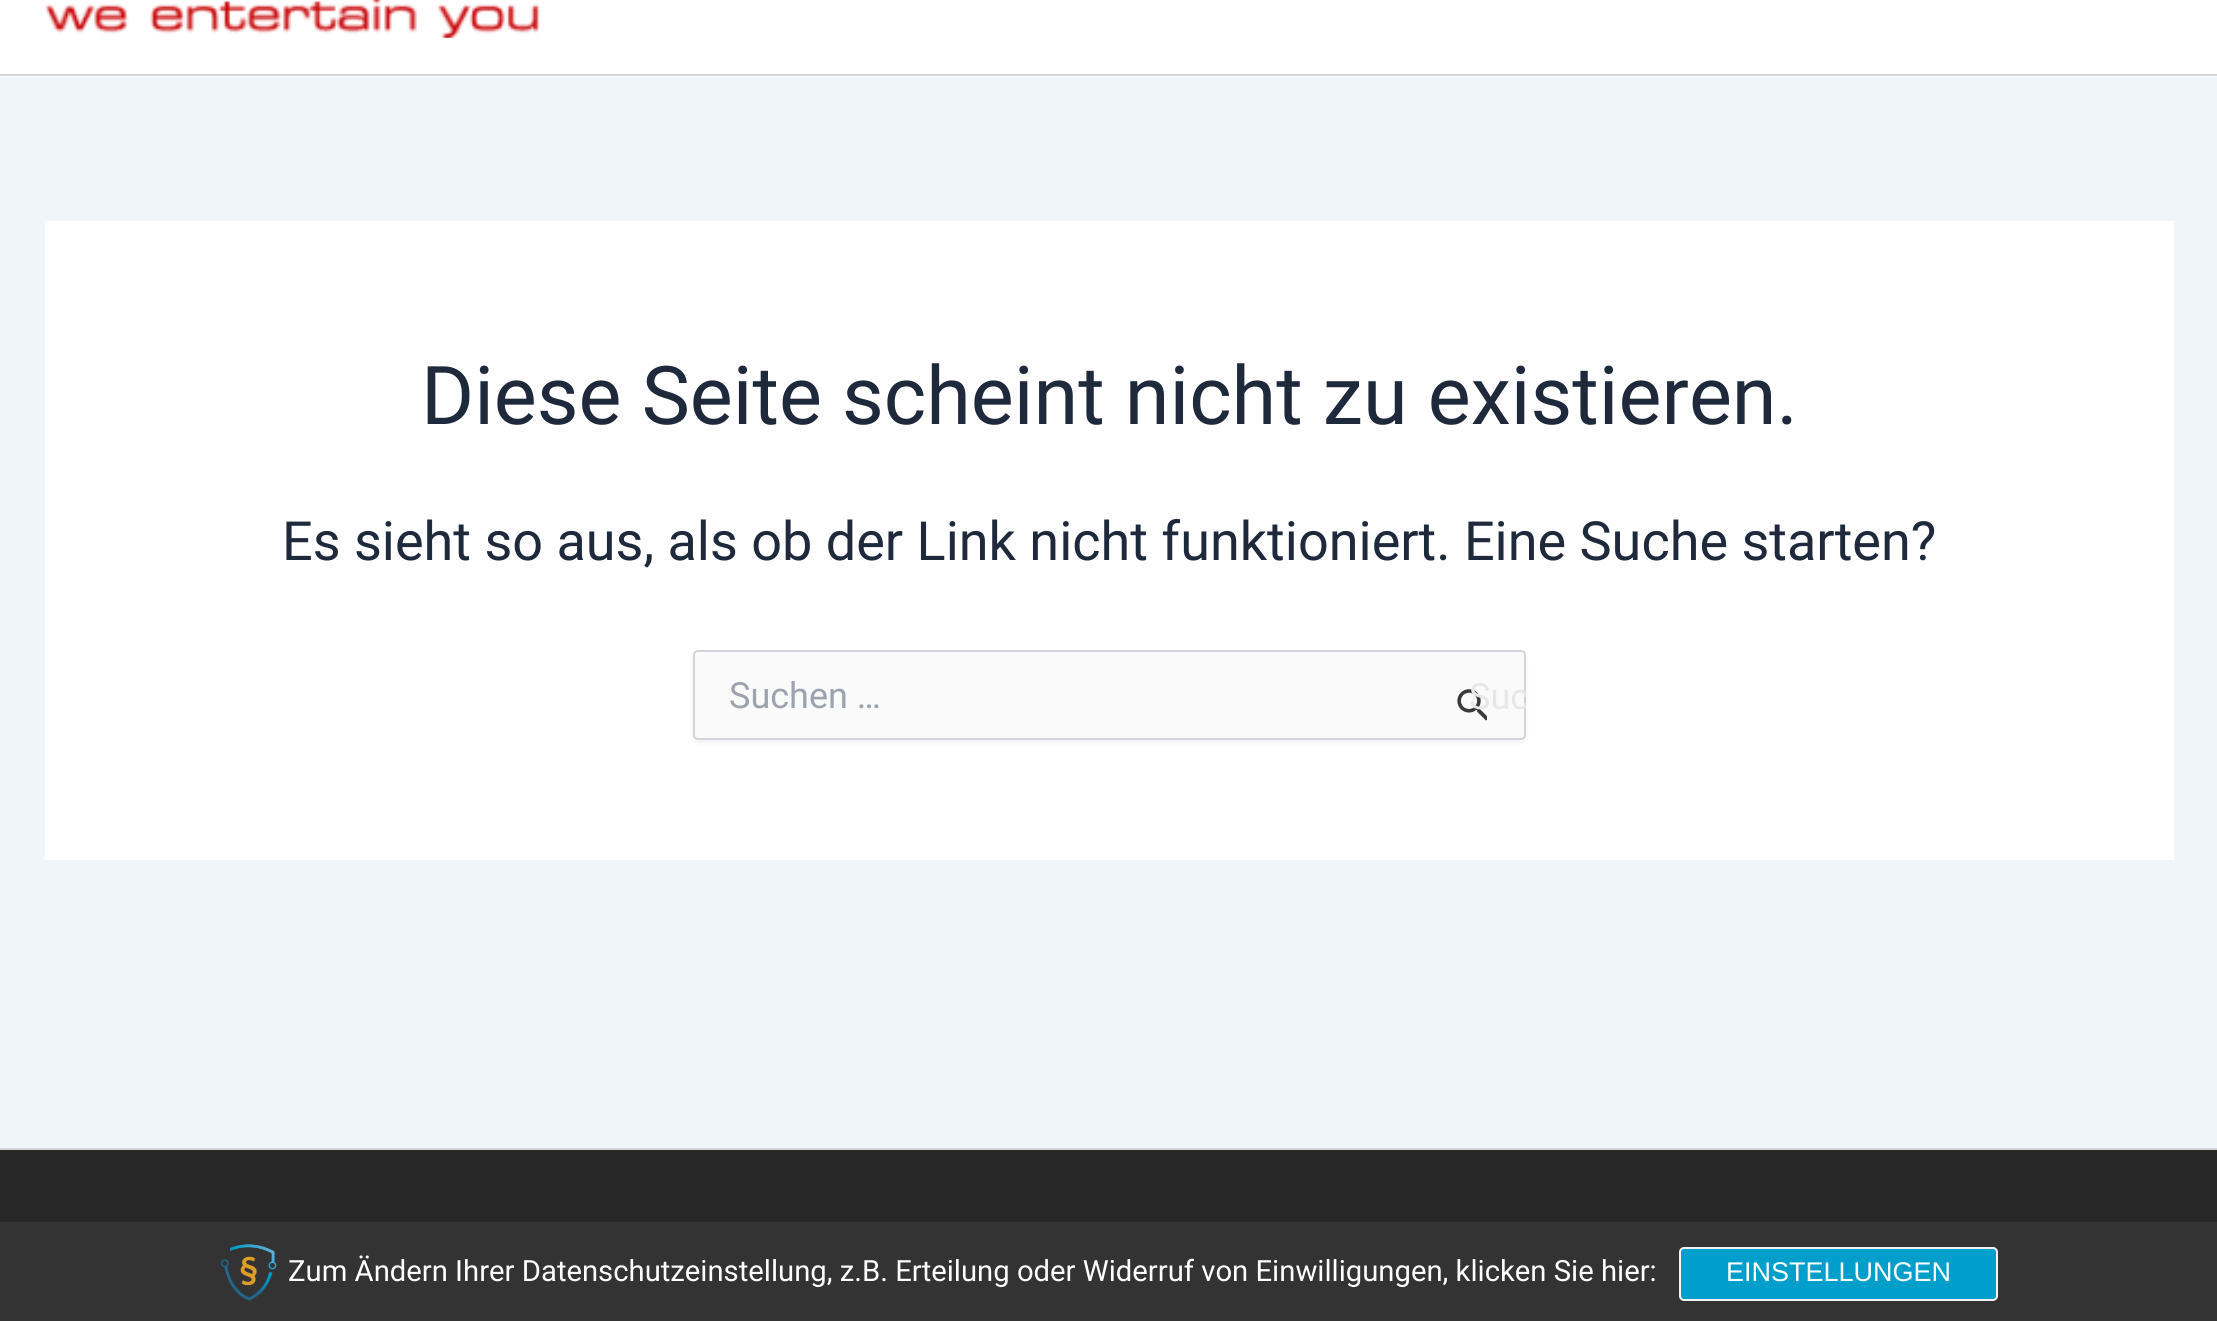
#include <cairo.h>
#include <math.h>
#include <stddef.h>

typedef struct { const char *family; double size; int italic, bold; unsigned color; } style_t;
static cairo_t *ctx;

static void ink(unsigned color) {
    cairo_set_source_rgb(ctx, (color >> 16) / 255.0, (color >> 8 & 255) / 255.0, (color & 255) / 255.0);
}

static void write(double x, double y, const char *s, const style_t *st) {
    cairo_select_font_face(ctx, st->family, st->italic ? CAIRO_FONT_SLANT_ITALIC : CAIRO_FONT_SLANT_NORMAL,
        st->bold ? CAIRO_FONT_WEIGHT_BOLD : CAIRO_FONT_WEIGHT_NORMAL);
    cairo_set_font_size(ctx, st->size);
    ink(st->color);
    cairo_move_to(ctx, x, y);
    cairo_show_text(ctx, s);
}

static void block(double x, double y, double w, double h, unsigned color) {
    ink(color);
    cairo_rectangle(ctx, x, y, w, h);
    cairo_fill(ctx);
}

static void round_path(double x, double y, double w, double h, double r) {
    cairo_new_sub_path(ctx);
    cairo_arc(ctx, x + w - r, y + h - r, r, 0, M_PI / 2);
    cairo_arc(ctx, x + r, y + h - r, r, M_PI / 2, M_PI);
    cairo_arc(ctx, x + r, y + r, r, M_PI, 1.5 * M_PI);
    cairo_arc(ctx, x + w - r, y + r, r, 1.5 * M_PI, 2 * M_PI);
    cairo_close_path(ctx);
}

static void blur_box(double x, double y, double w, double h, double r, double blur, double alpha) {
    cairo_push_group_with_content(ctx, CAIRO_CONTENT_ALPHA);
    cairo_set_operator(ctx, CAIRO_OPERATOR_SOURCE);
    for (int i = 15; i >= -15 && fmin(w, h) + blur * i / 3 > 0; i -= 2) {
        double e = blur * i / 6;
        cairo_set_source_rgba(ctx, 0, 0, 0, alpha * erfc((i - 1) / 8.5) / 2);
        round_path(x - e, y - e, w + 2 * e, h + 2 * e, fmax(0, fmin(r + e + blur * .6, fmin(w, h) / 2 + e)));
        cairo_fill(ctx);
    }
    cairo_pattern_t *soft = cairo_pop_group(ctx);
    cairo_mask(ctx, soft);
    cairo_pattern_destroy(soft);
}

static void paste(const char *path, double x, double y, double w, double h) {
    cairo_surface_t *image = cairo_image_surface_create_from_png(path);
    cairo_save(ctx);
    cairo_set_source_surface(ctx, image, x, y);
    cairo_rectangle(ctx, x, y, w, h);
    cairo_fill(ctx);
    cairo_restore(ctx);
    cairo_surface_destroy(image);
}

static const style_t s1 = {"Roboto", 81, 0, 0, 0x1e293b};
static const style_t s2 = {"Roboto", 54, 0, 0, 0x1e293b};
static const style_t s3 = {"Roboto", 36, 0, 0, 0x9ca3af};
static const style_t s4 = {"Roboto", 36, 0, 0, 0xe7e7e8};
static const style_t s5 = {"Roboto", 29.25, 0, 0, 0xffffff};
static const style_t s6 = {"Liberation Sans", 27, 0, 0, 0xffffff};

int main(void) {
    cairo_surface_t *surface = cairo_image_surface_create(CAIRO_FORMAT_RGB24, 2217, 1321);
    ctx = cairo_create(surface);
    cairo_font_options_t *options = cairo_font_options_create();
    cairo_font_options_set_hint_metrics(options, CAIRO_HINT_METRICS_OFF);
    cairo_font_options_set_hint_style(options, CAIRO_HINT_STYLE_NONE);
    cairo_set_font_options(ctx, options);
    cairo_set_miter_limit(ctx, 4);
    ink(0xf0f5fa);
    cairo_paint(ctx);
    block(0, 0, 2217, 77, 0xffffff);
    block(0, 74, 2217, 2, 0xd1d5db);
    paste("pic1.png", 45, 0, 495, 38);
    block(45, 221, 2129, 639, 0xffffff);
    write(421, 424, "Diese Seite scheint nicht zu existieren.", &s1);
    write(282, 560, "Es sieht so aus, als ob der Link nicht funktioniert. Eine Suche starten?", &s2);
    ink(0x000000);
    blur_box(693, 653, 833, 90, 5, 2, 0.05);
    ink(0xfafafa);
    round_path(694, 651, 831, 88, 4);
    cairo_fill_preserve(ctx);
    ink(0xd1d5db);
    cairo_stroke(ctx);
    write(729, 708, "Suchen …", &s3);
    paste("pic2.png", 1457, 689, 30, 32);
    cairo_save(ctx);
    round_path(1424, 650, 102, 95, 5);
    cairo_clip(ctx);
    write(1469, 709, "Suc", &s4);
    cairo_restore(ctx);
    block(0, 1150, 2217, 72, 0x272727);
    block(0, 1148, 2217, 2, 0xd1d5db);
    block(0, 1222, 2217, 99, 0x333333);
    paste("pic3.png", 220, 1244, 57, 57);
    write(288, 1281, "Zum Ändern Ihrer Datenschutzeinstellung, z.B. Erteilung oder Widerruf von Einwilligungen, klicken Sie hier:", &s5);
    ink(0x009ecb);
    round_path(1680, 1248, 317, 52, 4);
    cairo_fill_preserve(ctx);
    ink(0xf3f3f3);
    cairo_stroke(ctx);
    write(1726, 1281, "EINSTELLUNGEN", &s6);
    cairo_surface_write_to_png(surface, "screenshot.png");
    cairo_font_options_destroy(options);
    cairo_destroy(ctx);
    cairo_surface_destroy(surface);
    return 0;
}
